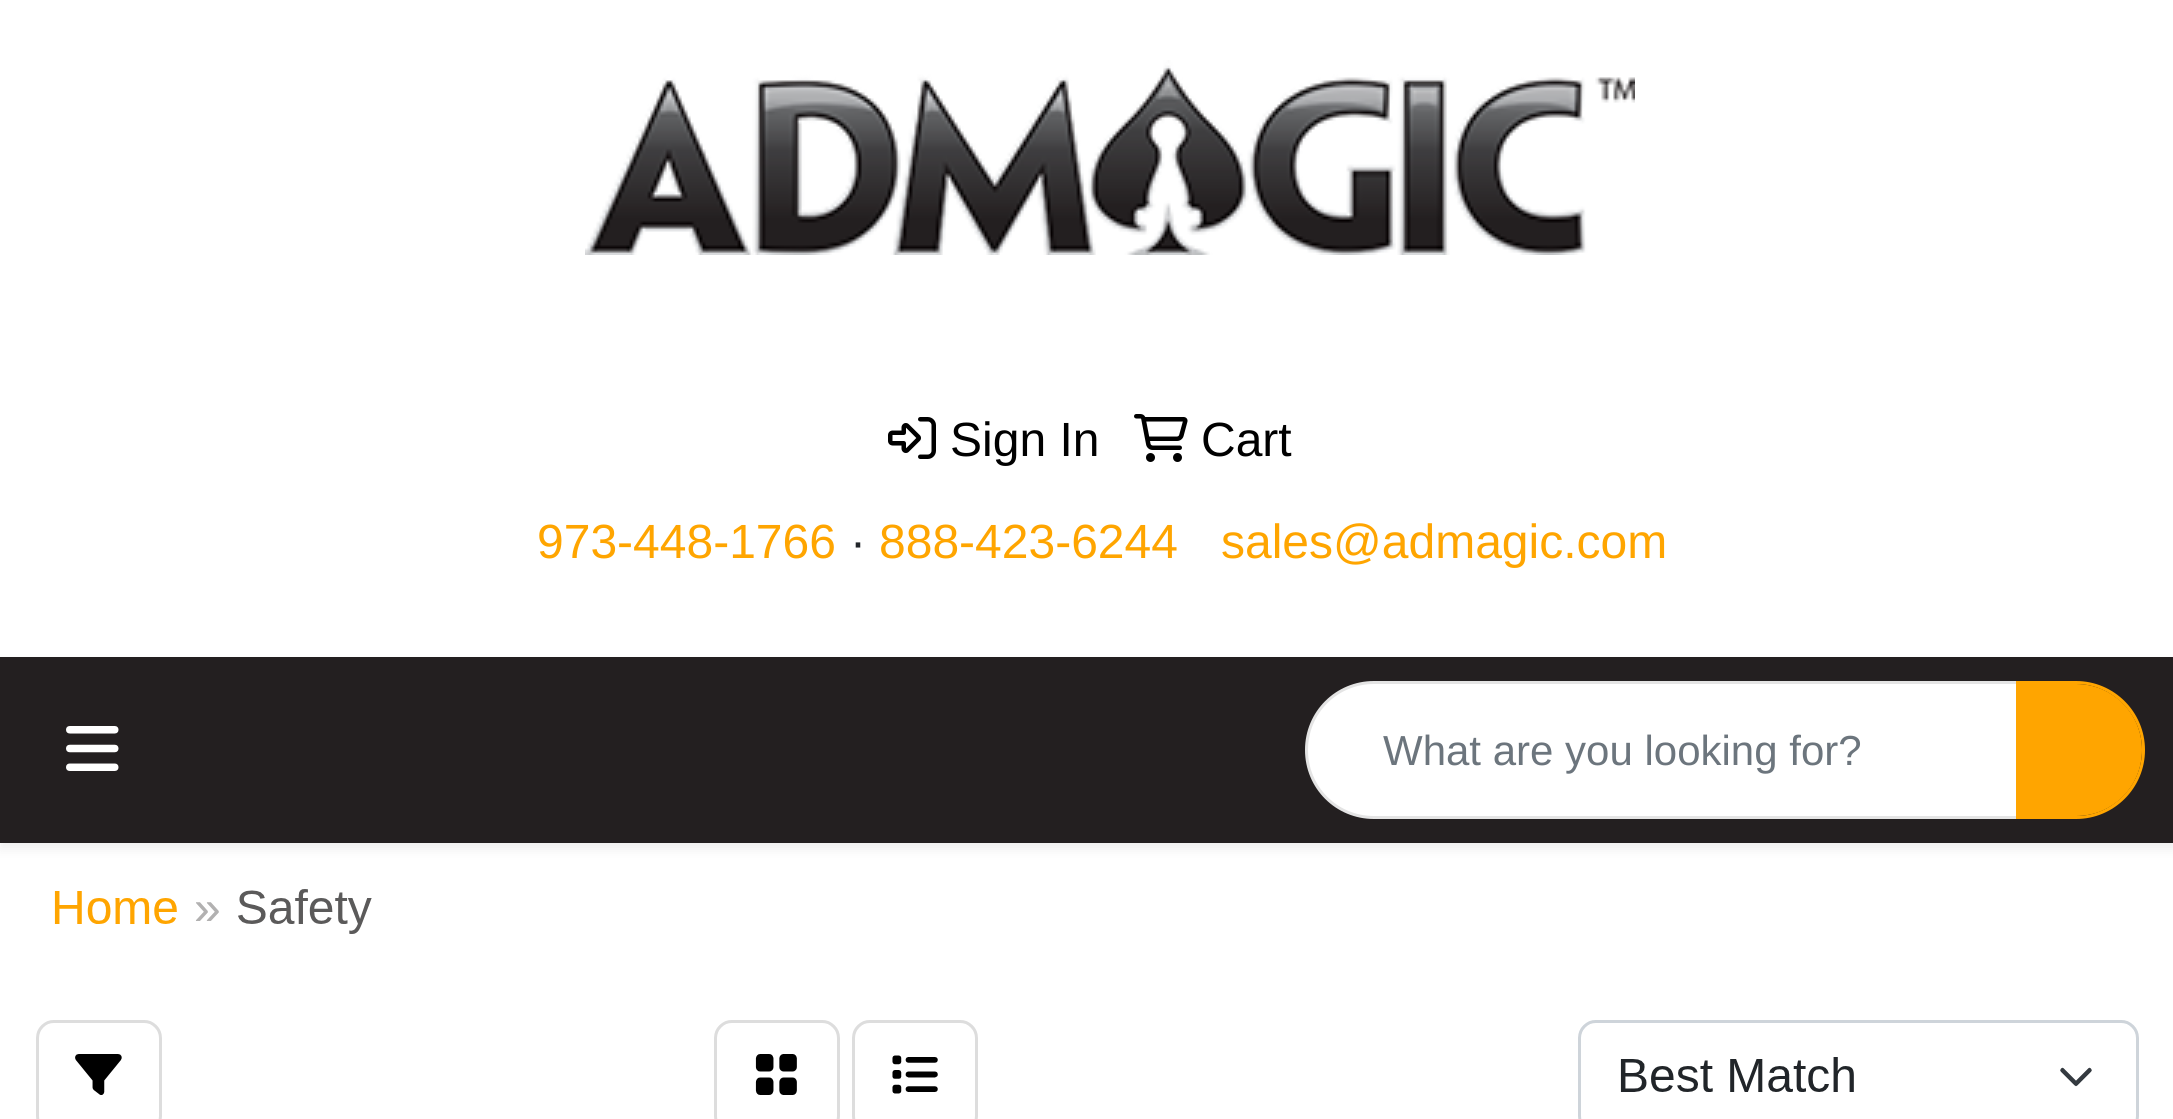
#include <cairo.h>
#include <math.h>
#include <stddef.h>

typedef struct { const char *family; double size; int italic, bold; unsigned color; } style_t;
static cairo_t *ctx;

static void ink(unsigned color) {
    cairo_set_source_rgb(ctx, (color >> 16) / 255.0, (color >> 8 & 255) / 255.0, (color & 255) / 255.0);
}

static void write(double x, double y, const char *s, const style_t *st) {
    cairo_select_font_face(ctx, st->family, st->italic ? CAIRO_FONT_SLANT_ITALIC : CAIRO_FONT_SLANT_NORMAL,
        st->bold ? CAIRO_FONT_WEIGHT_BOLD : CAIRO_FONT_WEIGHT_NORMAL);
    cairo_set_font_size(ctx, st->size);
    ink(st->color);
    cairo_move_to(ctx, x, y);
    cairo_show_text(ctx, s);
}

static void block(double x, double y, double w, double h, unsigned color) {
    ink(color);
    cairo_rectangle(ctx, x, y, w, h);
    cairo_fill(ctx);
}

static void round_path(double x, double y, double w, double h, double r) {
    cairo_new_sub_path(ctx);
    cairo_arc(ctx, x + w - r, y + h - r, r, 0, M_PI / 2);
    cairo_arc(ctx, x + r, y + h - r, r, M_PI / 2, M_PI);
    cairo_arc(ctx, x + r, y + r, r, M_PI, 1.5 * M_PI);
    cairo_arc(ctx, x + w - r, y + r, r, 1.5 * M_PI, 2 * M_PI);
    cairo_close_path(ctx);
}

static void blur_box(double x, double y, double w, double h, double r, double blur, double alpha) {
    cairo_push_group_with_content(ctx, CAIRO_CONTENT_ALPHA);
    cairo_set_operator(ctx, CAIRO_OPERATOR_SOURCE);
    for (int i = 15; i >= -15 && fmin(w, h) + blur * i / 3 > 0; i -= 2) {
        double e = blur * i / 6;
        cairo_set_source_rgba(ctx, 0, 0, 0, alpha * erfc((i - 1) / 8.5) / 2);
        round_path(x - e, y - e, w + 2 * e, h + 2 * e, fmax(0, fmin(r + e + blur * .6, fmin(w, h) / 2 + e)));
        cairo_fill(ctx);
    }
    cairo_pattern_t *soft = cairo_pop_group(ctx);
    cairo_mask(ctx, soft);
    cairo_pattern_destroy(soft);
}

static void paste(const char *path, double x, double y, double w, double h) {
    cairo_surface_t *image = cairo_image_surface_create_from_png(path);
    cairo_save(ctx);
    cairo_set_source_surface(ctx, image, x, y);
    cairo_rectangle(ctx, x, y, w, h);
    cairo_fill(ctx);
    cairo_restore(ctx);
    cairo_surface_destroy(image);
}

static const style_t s1 = {"Liberation Sans", 48, 0, 0, 0x000000};
static const style_t s2 = {"Liberation Sans", 48, 0, 0, 0xffa500};
static const style_t s3 = {"Liberation Sans", 48, 0, 0, 0x212529};
static const style_t s4 = {"Liberation Sans", 42, 0, 0, 0x6c757d};

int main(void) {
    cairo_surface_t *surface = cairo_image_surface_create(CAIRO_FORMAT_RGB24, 2173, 1119);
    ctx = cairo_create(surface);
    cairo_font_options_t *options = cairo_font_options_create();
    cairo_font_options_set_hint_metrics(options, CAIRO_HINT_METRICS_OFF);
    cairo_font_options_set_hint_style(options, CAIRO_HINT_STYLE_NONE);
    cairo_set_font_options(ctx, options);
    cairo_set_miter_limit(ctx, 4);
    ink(0xffffff);
    cairo_paint(ctx);
    paste("pic1.png", 585, 60, 1050, 195);
    paste("pic2.png", 888, 417, 48, 42);
    write(950, 456, "Sign In", &s1);
    paste("pic3.png", 1134, 414, 54, 48);
    write(1201, 456, "Cart", &s1);
    write(537, 558, "973-448-1766", &s2);
    write(850, 558, "·", &s3);
    write(879, 558, "888-423-6244", &s2);
    write(1221, 558, "sales@admagic.com", &s2);
    ink(0x000000);
    blur_box(0, 663, 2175, 186, 0, 6, 0.07);
    block(0, 657, 2173, 186, 0x231f20);
    paste("pic4.png", 66, 726, 53, 45);
    ink(0xffffff);
    cairo_new_path(ctx);
    cairo_move_to(ctx, 1374, 682.5);
    cairo_line_to(ctx, 2017.5, 682.5);
    cairo_line_to(ctx, 2017.5, 817.5);
    cairo_line_to(ctx, 1374, 817.5);
    cairo_curve_to(ctx, 1336.5, 817.5, 1306.5, 787.5, 1306.5, 750);
    cairo_curve_to(ctx, 1306.5, 712.5, 1336.5, 682.5, 1374, 682.5);
    cairo_close_path(ctx);
    cairo_fill_preserve(ctx);
    ink(0xe4e4e4);
    cairo_set_line_width(ctx, 3);
    cairo_stroke(ctx);
    write(1383, 765, "What are you looking for?", &s4);
    ink(0xffa500);
    cairo_new_path(ctx);
    cairo_move_to(ctx, 2016, 684);
    cairo_line_to(ctx, 2076, 684);
    cairo_curve_to(ctx, 2112.5, 684, 2142, 713.5, 2142, 750);
    cairo_curve_to(ctx, 2142, 786.5, 2112.5, 816, 2076, 816);
    cairo_line_to(ctx, 2016, 816);
    cairo_close_path(ctx);
    cairo_fill(ctx);
    cairo_set_fill_rule(ctx, CAIRO_FILL_RULE_EVEN_ODD);
    cairo_new_path(ctx);
    cairo_move_to(ctx, 2016, 681);
    cairo_line_to(ctx, 2076, 681);
    cairo_curve_to(ctx, 2114, 681, 2145, 712, 2145, 750);
    cairo_curve_to(ctx, 2145, 788, 2114, 819, 2076, 819);
    cairo_line_to(ctx, 2016, 819);
    cairo_close_path(ctx);
    cairo_move_to(ctx, 2016, 684);
    cairo_line_to(ctx, 2076, 684);
    cairo_curve_to(ctx, 2112, 684, 2142, 714, 2142, 750);
    cairo_curve_to(ctx, 2142, 786, 2112, 816, 2076, 816);
    cairo_line_to(ctx, 2016, 816);
    cairo_close_path(ctx);
    cairo_fill(ctx);
    paste("pic5.png", 36, 889, 2103, 230);
    cairo_surface_write_to_png(surface, "screenshot.png");
    cairo_font_options_destroy(options);
    cairo_destroy(ctx);
    cairo_surface_destroy(surface);
    return 0;
}
